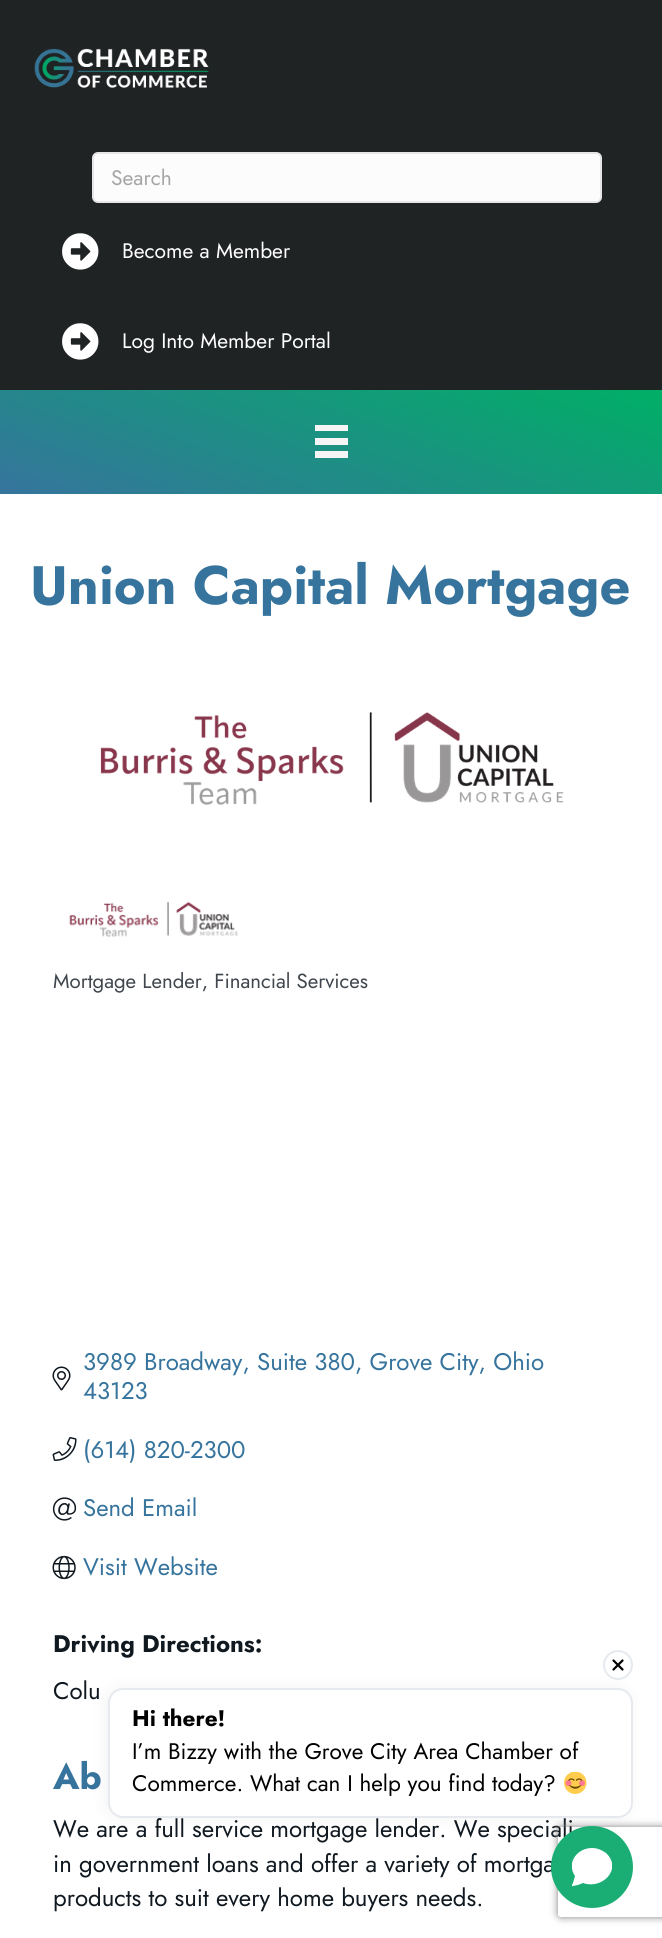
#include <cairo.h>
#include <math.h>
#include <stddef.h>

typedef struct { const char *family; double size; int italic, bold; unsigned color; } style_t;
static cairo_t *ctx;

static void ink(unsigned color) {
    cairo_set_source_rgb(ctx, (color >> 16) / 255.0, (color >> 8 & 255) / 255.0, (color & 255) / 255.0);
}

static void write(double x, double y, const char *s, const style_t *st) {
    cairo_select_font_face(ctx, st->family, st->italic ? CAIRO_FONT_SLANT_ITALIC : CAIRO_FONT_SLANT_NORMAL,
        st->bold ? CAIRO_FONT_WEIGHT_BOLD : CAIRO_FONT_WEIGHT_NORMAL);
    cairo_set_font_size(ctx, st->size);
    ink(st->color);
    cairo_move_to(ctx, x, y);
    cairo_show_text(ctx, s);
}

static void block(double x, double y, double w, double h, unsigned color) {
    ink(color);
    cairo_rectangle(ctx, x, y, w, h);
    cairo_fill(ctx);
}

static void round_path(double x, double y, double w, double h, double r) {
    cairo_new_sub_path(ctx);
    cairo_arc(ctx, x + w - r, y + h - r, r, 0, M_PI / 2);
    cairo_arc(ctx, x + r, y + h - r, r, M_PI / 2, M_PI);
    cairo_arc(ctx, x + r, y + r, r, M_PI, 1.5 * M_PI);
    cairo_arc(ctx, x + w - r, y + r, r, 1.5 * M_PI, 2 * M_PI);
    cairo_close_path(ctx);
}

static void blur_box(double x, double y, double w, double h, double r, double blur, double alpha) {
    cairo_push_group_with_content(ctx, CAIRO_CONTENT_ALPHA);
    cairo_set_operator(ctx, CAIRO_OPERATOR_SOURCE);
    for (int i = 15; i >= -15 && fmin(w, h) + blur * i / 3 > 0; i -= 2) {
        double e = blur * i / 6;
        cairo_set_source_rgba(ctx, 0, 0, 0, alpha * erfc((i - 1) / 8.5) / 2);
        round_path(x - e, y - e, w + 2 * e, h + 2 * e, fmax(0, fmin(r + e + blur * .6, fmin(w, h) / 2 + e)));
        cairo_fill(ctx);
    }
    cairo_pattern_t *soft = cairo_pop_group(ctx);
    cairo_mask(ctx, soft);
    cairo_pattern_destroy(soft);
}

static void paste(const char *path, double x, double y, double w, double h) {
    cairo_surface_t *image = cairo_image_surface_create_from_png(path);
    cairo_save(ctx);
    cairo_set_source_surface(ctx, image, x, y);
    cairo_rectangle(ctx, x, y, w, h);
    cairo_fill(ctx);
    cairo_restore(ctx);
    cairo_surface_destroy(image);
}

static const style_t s1 = {"Jost", 21, 0, 0, 0xa5a5a5};
static const style_t s2 = {"Jost", 21, 0, 0, 0xffffff};
static const style_t s3 = {"Jost", 54, 0, 1, 0x36749d};
static const style_t s4 = {"Jost", 20.4, 0, 0, 0x40464d};
static const style_t s5 = {"Jost", 24, 0, 0, 0x36749d};
static const style_t s6 = {"Jost", 24, 0, 1, 0x101820};
static const style_t s7 = {"Jost", 24, 0, 0, 0x101820};
static const style_t s8 = {"Jost", 36, 0, 1, 0x36749d};
static const style_t s9 = {"Jost", 22.5, 0, 1, 0x000000};
static const style_t s10 = {"Jost", 22.5, 0, 0, 0x000000};

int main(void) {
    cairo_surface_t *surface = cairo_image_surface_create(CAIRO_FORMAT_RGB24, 662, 1938);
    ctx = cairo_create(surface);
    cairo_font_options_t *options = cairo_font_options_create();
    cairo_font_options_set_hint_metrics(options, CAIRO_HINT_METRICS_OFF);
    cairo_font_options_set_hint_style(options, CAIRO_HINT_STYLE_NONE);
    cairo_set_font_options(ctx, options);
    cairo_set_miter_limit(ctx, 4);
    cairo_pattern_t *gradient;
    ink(0x202324);
    cairo_paint(ctx);
    paste("pic1.png", 34, 48, 175, 40);
    ink(0xfcfcfc);
    round_path(93, 153, 508, 49, 5);
    cairo_fill_preserve(ctx);
    ink(0xe6e6e6);
    cairo_stroke(ctx);
    write(111, 185, "Search", &s1);
    paste("pic2.png", 62, 233, 37, 37);
    write(122, 258, "Become a Member", &s2);
    paste("pic2.png", 62, 323, 37, 37);
    write(122, 348, "Log Into Member Portal", &s2);
    gradient = cairo_pattern_create_linear(276, 594, 387, 290);
    cairo_pattern_add_color_stop_rgba(gradient, 0, 0.212, 0.455, 0.616, 1);
    cairo_pattern_add_color_stop_rgba(gradient, 1, 0, 0.686, 0.4, 1);
    cairo_set_source(ctx, gradient);
    cairo_pattern_destroy(gradient);
    cairo_rectangle(ctx, 0, 390, 662, 104);
    cairo_fill(ctx);
    block(315, 425, 33, 6, 0xf5f5f5);
    block(315, 438, 33, 7, 0xf5f5f5);
    block(315, 451, 33, 7, 0xf5f5f5);
    block(0, 494, 662, 1444, 0xffffff);
    write(30, 604, "Union Capital Mortgage", &s3);
    paste("pic3.png", 100, 712, 464, 93);
    paste("pic4.png", 69, 901, 169, 36);
    write(53, 988, "Mortgage Lender, Financial Services", &s4);
    write(83, 1370, "3989 Broadway, Suite 380, Grove City, Ohio", &s5);
    paste("pic5.png", 52, 1366, 19, 25);
    write(83, 1399, "43123", &s5);
    paste("pic6.png", 52, 1437, 25, 24);
    write(83, 1458, "(614) 820-2300", &s5);
    paste("pic7.png", 52, 1497, 25, 24);
    write(83, 1516, "Send Email", &s5);
    paste("pic8.png", 52, 1555, 24, 25);
    write(83, 1575, "Visit Website", &s5);
    write(53, 1652, "Driving Directions:", &s6);
    write(53, 1699, "Colu", &s7);
    write(53, 1789, "Ab", &s8);
    write(53, 1837, "We are a full service mortgage lender. We speciali", &s7);
    write(53, 1872, "in government loans and offer a variety of mortga", &s7);
    write(53, 1906, "products to suit every home buyers needs.", &s7);
    cairo_save(ctx);
    cairo_set_fill_rule(ctx, CAIRO_FILL_RULE_EVEN_ODD);
    cairo_new_path(ctx);
    cairo_move_to(ctx, 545, 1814);
    cairo_line_to(ctx, 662, 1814);
    cairo_line_to(ctx, 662, 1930);
    cairo_line_to(ctx, 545, 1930);
    cairo_close_path(ctx);
    cairo_move_to(ctx, 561, 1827);
    cairo_line_to(ctx, 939, 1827);
    cairo_curve_to(ctx, 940.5, 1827, 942, 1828.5, 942, 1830);
    cairo_line_to(ctx, 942, 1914);
    cairo_curve_to(ctx, 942, 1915.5, 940.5, 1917, 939, 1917);
    cairo_line_to(ctx, 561, 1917);
    cairo_curve_to(ctx, 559.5, 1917, 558, 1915.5, 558, 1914);
    cairo_line_to(ctx, 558, 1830);
    cairo_curve_to(ctx, 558, 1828.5, 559.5, 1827, 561, 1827);
    cairo_close_path(ctx);
    cairo_clip(ctx);
    ink(0x808080);
    blur_box(558, 1827, 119, 90, 3, 4, 1);
    cairo_restore(ctx);
    ink(0x1bae74);
    cairo_arc(ctx, 592, 1867, 41, 0, 2 * M_PI);
    cairo_fill(ctx);
    ink(0x000000);
    blur_box(105, 1688, 525, 130, 15, 7.5, 0.05);
    cairo_arc(ctx, 618, 1665, 14, 0, 2 * M_PI);
    ink(0xe6e9ee);
    cairo_stroke(ctx);
    cairo_new_path(ctx);
    cairo_move_to(ctx, 613.5, 1669.5);
    cairo_line_to(ctx, 622.5, 1660.5);
    cairo_move_to(ctx, 613.5, 1660.5);
    cairo_line_to(ctx, 622.5, 1669.5);
    ink(0x000000);
    cairo_set_line_width(ctx, 2.2);
    cairo_set_line_cap(ctx, CAIRO_LINE_CAP_ROUND);
    cairo_set_line_join(ctx, CAIRO_LINE_JOIN_ROUND);
    cairo_stroke(ctx);
    ink(0xffffff);
    round_path(109, 1689, 523, 128, 14);
    cairo_fill_preserve(ctx);
    ink(0xe6e9ee);
    cairo_set_line_width(ctx, 2);
    cairo_set_line_cap(ctx, CAIRO_LINE_CAP_BUTT);
    cairo_set_line_join(ctx, CAIRO_LINE_JOIN_MITER);
    cairo_stroke(ctx);
    write(132, 1726, "Hi there!", &s9);
    write(132, 1759, "I’m Bizzy with the Grove City Area Chamber of", &s10);
    write(132, 1791, "Commerce. What can I help you find today?", &s10);
    paste("pic9.png", 564, 1772, 23, 22);
    cairo_save(ctx);
    cairo_rectangle(ctx, 572, 1847, 40, 40);
    cairo_clip(ctx);
    ink(0xffffff);
    cairo_new_path(ctx);
    cairo_move_to(ctx, 592, 1848);
    cairo_curve_to(ctx, 577, 1848, 566, 1863, 575, 1876);
    cairo_line_to(ctx, 573, 1883);
    cairo_curve_to(ctx, 572, 1885, 570, 1887, 573, 1886);
    cairo_line_to(ctx, 578, 1885);
    cairo_line_to(ctx, 583, 1883);
    cairo_curve_to(ctx, 602, 1890, 623, 1869, 606, 1853);
    cairo_curve_to(ctx, 602, 1850, 597, 1848, 592, 1848);
    cairo_close_path(ctx);
    cairo_fill(ctx);
    cairo_restore(ctx);
    cairo_surface_write_to_png(surface, "screenshot.png");
    cairo_font_options_destroy(options);
    cairo_destroy(ctx);
    cairo_surface_destroy(surface);
    return 0;
}
